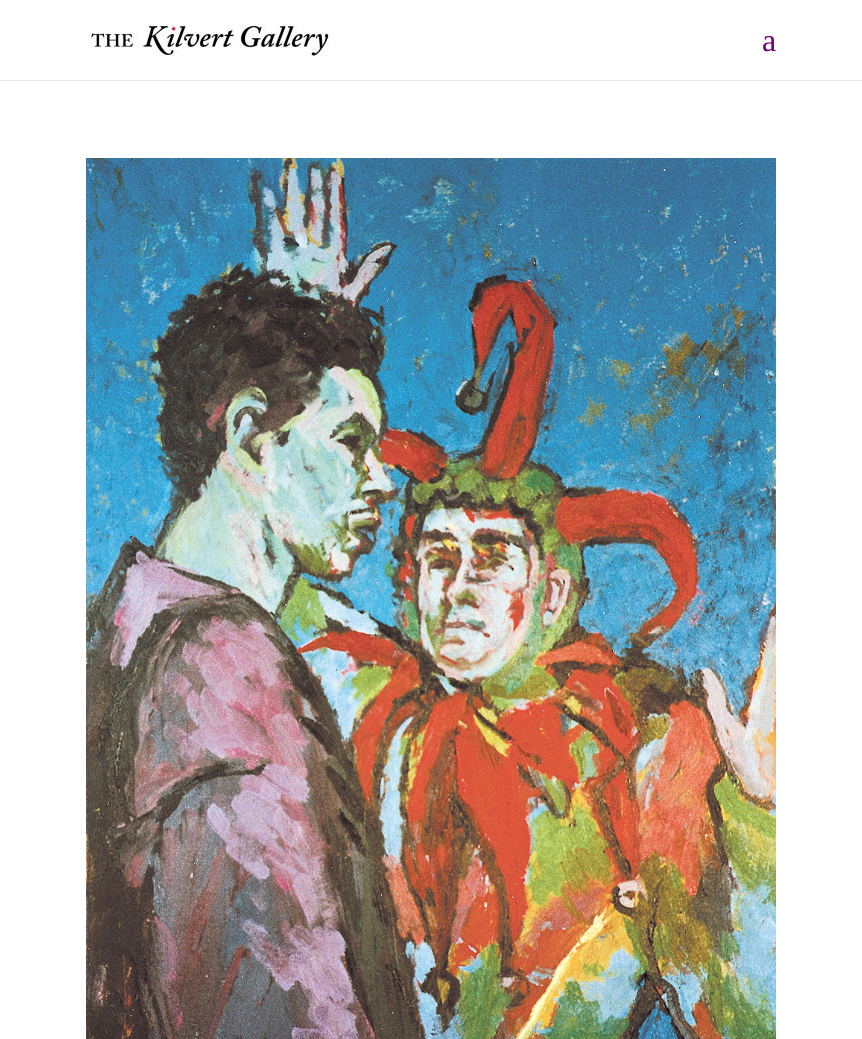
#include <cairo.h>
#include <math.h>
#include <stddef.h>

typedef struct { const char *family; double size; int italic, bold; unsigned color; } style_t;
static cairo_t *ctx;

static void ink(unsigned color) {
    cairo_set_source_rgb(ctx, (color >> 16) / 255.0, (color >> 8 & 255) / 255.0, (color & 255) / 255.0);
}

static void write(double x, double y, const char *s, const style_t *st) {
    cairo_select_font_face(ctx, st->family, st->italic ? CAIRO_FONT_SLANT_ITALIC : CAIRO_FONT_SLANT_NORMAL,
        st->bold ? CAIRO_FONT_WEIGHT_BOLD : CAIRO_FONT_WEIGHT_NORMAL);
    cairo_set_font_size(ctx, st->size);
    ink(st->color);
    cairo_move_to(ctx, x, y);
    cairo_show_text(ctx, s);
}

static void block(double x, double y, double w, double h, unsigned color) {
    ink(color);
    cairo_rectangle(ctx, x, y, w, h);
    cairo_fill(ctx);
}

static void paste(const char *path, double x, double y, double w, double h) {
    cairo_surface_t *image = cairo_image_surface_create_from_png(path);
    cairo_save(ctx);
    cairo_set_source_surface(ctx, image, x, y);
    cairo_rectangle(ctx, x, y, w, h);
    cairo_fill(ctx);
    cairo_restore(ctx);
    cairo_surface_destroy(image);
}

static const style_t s1 = {"Liberation Serif", 32, 0, 0, 0x6f0075};

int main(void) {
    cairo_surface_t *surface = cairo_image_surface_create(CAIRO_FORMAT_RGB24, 862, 1039);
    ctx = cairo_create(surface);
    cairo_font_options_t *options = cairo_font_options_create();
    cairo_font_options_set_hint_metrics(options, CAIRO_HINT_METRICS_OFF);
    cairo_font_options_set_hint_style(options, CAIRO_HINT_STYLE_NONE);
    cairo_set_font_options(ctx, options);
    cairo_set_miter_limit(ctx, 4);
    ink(0xffffff);
    cairo_paint(ctx);
    block(0, 80, 862, 1, 0xe6e6e6);
    paste("pic1.png", 90, 24, 240, 32);
    write(762, 51, "a", &s1);
    paste("pic2.png", 86, 158, 690, 881);
    cairo_surface_write_to_png(surface, "screenshot.png");
    cairo_font_options_destroy(options);
    cairo_destroy(ctx);
    cairo_surface_destroy(surface);
    return 0;
}
